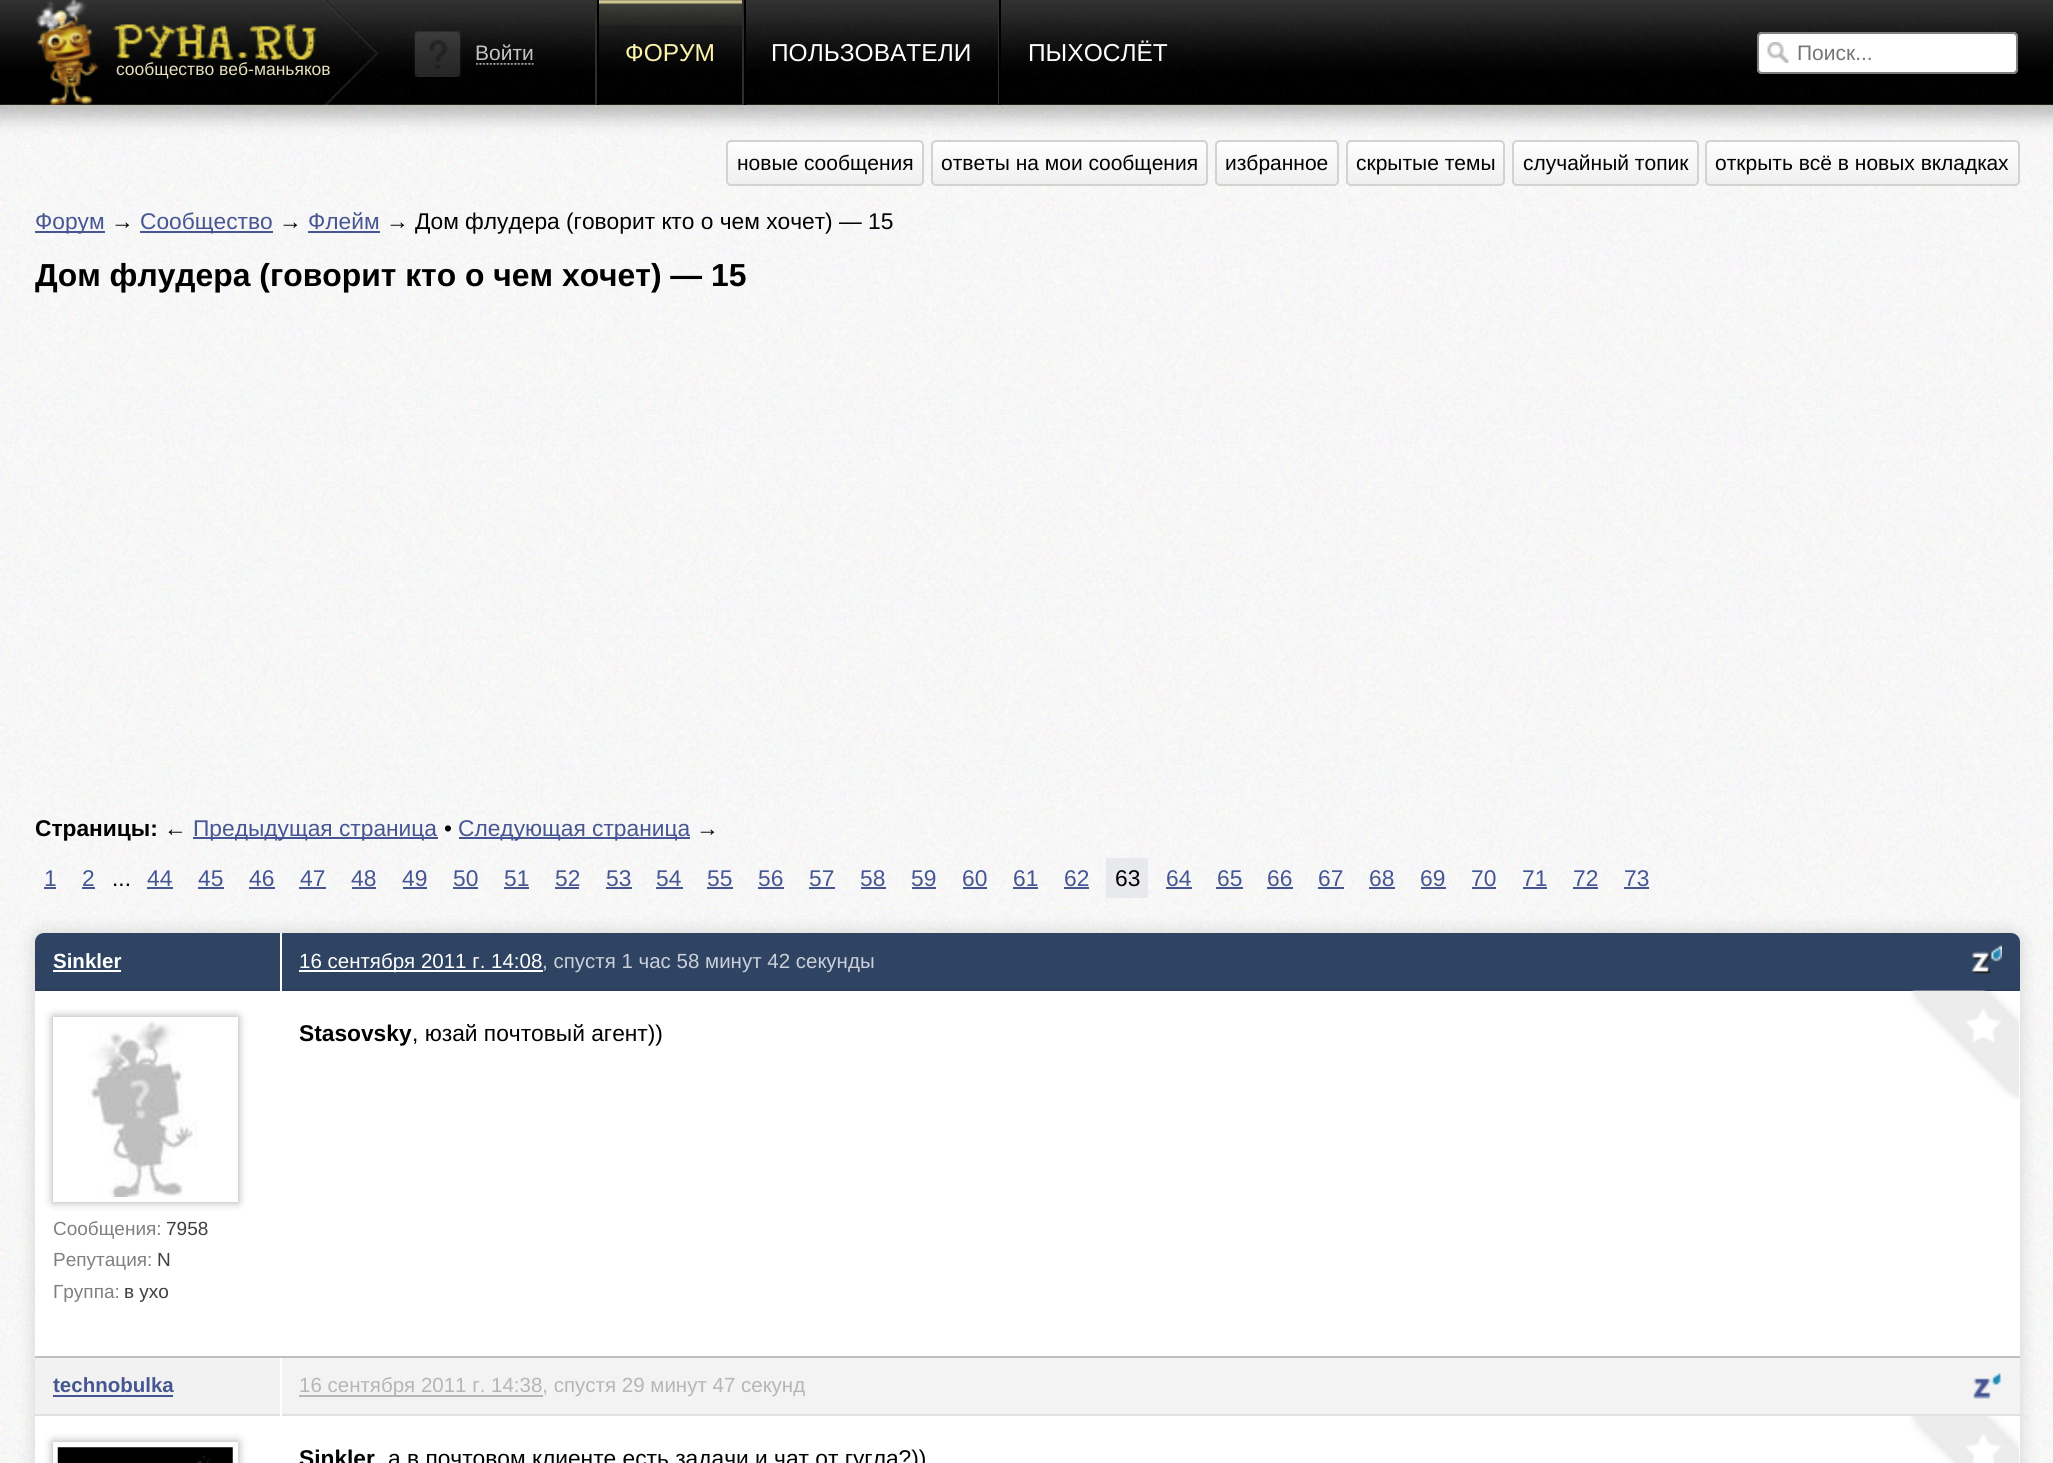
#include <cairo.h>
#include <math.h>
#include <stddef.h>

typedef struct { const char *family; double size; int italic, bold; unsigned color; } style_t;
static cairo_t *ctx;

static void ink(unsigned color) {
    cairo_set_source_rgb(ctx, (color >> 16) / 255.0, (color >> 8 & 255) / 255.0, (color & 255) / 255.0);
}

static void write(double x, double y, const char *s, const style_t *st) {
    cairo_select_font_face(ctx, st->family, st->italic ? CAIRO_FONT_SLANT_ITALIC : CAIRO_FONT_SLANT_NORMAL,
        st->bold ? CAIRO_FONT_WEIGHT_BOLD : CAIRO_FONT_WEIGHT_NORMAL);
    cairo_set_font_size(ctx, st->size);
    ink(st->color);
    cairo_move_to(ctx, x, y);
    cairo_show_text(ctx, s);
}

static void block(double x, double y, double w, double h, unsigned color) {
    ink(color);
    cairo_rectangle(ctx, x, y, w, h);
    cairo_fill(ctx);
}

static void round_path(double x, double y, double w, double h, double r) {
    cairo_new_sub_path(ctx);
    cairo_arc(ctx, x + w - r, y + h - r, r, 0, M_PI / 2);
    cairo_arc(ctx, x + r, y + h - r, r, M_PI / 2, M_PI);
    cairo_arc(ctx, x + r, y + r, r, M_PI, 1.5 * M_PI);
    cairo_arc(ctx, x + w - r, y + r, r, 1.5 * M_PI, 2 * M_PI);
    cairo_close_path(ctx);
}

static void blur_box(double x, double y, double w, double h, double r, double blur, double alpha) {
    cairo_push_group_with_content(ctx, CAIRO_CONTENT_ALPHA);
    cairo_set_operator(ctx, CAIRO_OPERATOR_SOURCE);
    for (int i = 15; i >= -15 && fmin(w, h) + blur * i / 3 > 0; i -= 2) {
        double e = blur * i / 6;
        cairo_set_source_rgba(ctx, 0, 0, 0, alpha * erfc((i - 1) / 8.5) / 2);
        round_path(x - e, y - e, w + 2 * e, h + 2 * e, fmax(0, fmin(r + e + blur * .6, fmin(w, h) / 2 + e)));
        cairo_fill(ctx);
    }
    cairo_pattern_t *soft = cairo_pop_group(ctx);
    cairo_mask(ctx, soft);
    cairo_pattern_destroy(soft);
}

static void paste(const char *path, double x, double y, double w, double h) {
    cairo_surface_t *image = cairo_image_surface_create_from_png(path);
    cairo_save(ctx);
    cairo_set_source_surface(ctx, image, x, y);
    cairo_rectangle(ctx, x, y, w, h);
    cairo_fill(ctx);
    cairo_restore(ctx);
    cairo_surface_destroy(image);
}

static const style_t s1 = {"Liberation Sans", 21, 0, 0, 0xc3c3c3};
static const style_t s2 = {"Liberation Sans", 24.5, 0, 0, 0xfdf4a9};
static const style_t s3 = {"Liberation Sans", 24.5, 0, 0, 0xffffff};
static const style_t s4 = {"Liberation Sans", 21, 0, 0, 0x757575};
static const style_t s5 = {"Liberation Sans", 17.5, 0, 0, 0xe5dfbd};
static const style_t s6 = {"Liberation Sans", 21, 0, 0, 0x000000};
static const style_t s7 = {"Liberation Sans", 22.75, 0, 0, 0x465692};
static const style_t s8 = {"Liberation Sans", 22.75, 0, 0, 0x000000};
static const style_t s9 = {"Liberation Sans", 31.85, 0, 1, 0x000000};
static const style_t s10 = {"Liberation Sans", 22.75, 0, 1, 0x000000};
static const style_t s11 = {"Liberation Sans", 20.5, 0, 1, 0xffffff};
static const style_t s12 = {"Liberation Sans", 19, 0, 0, 0x808080};
static const style_t s13 = {"Liberation Sans", 19, 0, 0, 0x404040};
static const style_t s14 = {"Liberation Sans", 20.5, 0, 0, 0xffffff};
static const style_t s15 = {"Liberation Sans", 20.5, 0, 0, 0xcbd0d8};
static const style_t s16 = {"Liberation Sans", 20.5, 0, 1, 0x465692};
static const style_t s17 = {"Liberation Sans", 20.5, 0, 0, 0xb6b6b6};

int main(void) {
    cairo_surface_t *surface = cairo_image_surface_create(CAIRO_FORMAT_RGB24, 2053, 1463);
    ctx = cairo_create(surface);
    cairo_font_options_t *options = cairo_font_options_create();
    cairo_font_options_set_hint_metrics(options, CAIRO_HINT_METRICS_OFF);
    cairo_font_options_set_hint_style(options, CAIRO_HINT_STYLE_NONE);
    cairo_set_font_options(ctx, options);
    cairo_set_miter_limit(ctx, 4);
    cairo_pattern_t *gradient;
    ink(0xffffff);
    cairo_paint(ctx);
    paste("pic1.png", 0, 105, 2053, 1358);
    ink(0x000000);
    blur_box(-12, -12, 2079, 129, 0, 9, 0.25);
    block(0, 0, 2053, 105, 0x000000);
    paste("pic2.png", 73, 8, 1926, 89);
    paste("pic3.png", 0, 0, 2053, 105);
    block(595, 0, 2, 105, 0x2e2e2e);
    paste("pic4.png", 414, 31, 47, 46);
    write(475, 60, "Войти", &s1);
    paste("pic5.png", 476, 63, 58, 2);
    paste("pic6.png", 599, 0, 143, 25);
    block(742, 0, 2, 105, 0x2e2e2e);
    block(597, 0, 2, 105, 0x000000);
    write(625, 61, "ФОРУМ", &s2);
    block(998, 0, 1, 105, 0x2e2e2e);
    block(744, 0, 2, 105, 0x000000);
    write(771, 61, "ПОЛЬЗОВАТЕЛИ", &s3);
    block(999, 0, 2, 105, 0x000000);
    write(1028, 61, "ПЫХОСЛЁТ", &s3);
    round_path(1757, 32, 261, 42, 5);
    cairo_fill(ctx);
    paste("pic7.png", 1767, 42, 22, 21);
    round_path(1758, 33, 259, 40, 4);
    ink(0x7f7f7f);
    cairo_stroke(ctx);
    write(1797, 60, "Поиск...", &s4);
    paste("pic8.png", 35, 0, 344, 105);
    write(116, 75, "сообщество веб-маньяков", &s5);
    cairo_save(ctx);
    round_path(726, 140, 198, 46, 5);
    cairo_clip(ctx);
    gradient = cairo_pattern_create_linear(728, 184, 728, 142);
    cairo_pattern_add_color_stop_rgba(gradient, 0, 0.941, 0.941, 0.941, 1);
    cairo_pattern_add_color_stop_rgba(gradient, 1, 0.996, 0.996, 0.996, 1);
    cairo_set_source(ctx, gradient);
    cairo_pattern_destroy(gradient);
    cairo_rectangle(ctx, 726, 142, 198, 42);
    cairo_fill(ctx);
    cairo_restore(ctx);
    round_path(727, 141, 196, 44, 4);
    ink(0xd2d2d2);
    cairo_stroke(ctx);
    write(737, 170, "новые сообщения", &s6);
    cairo_save(ctx);
    round_path(931, 140, 277, 46, 5);
    cairo_clip(ctx);
    gradient = cairo_pattern_create_linear(933, 184, 933, 142);
    cairo_pattern_add_color_stop_rgba(gradient, 0, 0.941, 0.941, 0.941, 1);
    cairo_pattern_add_color_stop_rgba(gradient, 1, 0.996, 0.996, 0.996, 1);
    cairo_set_source(ctx, gradient);
    cairo_pattern_destroy(gradient);
    cairo_rectangle(ctx, 931, 142, 277, 42);
    cairo_fill(ctx);
    cairo_restore(ctx);
    round_path(932, 141, 275, 44, 4);
    ink(0xd2d2d2);
    cairo_stroke(ctx);
    write(941, 170, "ответы на мои сообщения", &s6);
    cairo_save(ctx);
    round_path(1215, 140, 124, 46, 5);
    cairo_clip(ctx);
    gradient = cairo_pattern_create_linear(1216, 184, 1216, 142);
    cairo_pattern_add_color_stop_rgba(gradient, 0, 0.941, 0.941, 0.941, 1);
    cairo_pattern_add_color_stop_rgba(gradient, 1, 0.996, 0.996, 0.996, 1);
    cairo_set_source(ctx, gradient);
    cairo_pattern_destroy(gradient);
    cairo_rectangle(ctx, 1215, 142, 124, 42);
    cairo_fill(ctx);
    cairo_restore(ctx);
    round_path(1216, 141, 122, 44, 4);
    ink(0xd2d2d2);
    cairo_stroke(ctx);
    write(1225, 170, "избранное", &s6);
    cairo_save(ctx);
    round_path(1346, 140, 159, 46, 5);
    cairo_clip(ctx);
    gradient = cairo_pattern_create_linear(1348, 184, 1348, 142);
    cairo_pattern_add_color_stop_rgba(gradient, 0, 0.941, 0.941, 0.941, 1);
    cairo_pattern_add_color_stop_rgba(gradient, 1, 0.996, 0.996, 0.996, 1);
    cairo_set_source(ctx, gradient);
    cairo_pattern_destroy(gradient);
    cairo_rectangle(ctx, 1346, 142, 159, 42);
    cairo_fill(ctx);
    cairo_restore(ctx);
    round_path(1347, 141, 157, 44, 4);
    ink(0xd2d2d2);
    cairo_stroke(ctx);
    write(1356, 170, "скрытые темы", &s6);
    cairo_save(ctx);
    round_path(1512, 140, 187, 46, 5);
    cairo_clip(ctx);
    gradient = cairo_pattern_create_linear(1514, 184, 1514, 142);
    cairo_pattern_add_color_stop_rgba(gradient, 0, 0.941, 0.941, 0.941, 1);
    cairo_pattern_add_color_stop_rgba(gradient, 1, 0.996, 0.996, 0.996, 1);
    cairo_set_source(ctx, gradient);
    cairo_pattern_destroy(gradient);
    cairo_rectangle(ctx, 1512, 142, 187, 42);
    cairo_fill(ctx);
    cairo_restore(ctx);
    round_path(1513, 141, 185, 44, 4);
    ink(0xd2d2d2);
    cairo_stroke(ctx);
    write(1523, 170, "случайный топик", &s6);
    cairo_save(ctx);
    round_path(1705, 140, 315, 46, 5);
    cairo_clip(ctx);
    gradient = cairo_pattern_create_linear(1706, 184, 1706, 142);
    cairo_pattern_add_color_stop_rgba(gradient, 0, 0.941, 0.941, 0.941, 1);
    cairo_pattern_add_color_stop_rgba(gradient, 1, 0.996, 0.996, 0.996, 1);
    cairo_set_source(ctx, gradient);
    cairo_pattern_destroy(gradient);
    cairo_rectangle(ctx, 1705, 142, 315, 42);
    cairo_fill(ctx);
    cairo_restore(ctx);
    round_path(1706, 141, 313, 44, 4);
    ink(0xd2d2d2);
    cairo_stroke(ctx);
    write(1715, 170, "открыть всё в новых вкладках", &s6);
    block(35, 231, 70, 2, 0x465692);
    write(35, 229, "Форум", &s7);
    write(111, 229, "→", &s8);
    block(140, 231, 133, 2, 0x465692);
    write(140, 229, "Сообщество", &s7);
    write(279, 229, "→", &s8);
    write(308, 229, "Флейм", &s7);
    block(308, 231, 72, 2, 0x465692);
    write(386, 229, "→ Дом флудера (говорит кто о чем хочет) — 15", &s8);
    write(35, 286, "Дом флудера (говорит кто о чем хочет) — 15", &s9);
    write(35, 836, "Страницы:", &s10);
    write(164, 836, "←", &s8);
    block(193, 837, 245, 2, 0x465692);
    write(193, 836, "Предыдущая страница", &s7);
    write(444, 836, "•", &s8);
    block(459, 837, 231, 2, 0x465692);
    write(458, 836, "Следующая страница", &s7);
    write(696, 836, "→", &s8);
    write(44, 886, "1", &s7);
    block(44, 887, 12, 2, 0x465692);
    write(82, 886, "2", &s7);
    block(82, 887, 13, 2, 0x465692);
    write(112, 886, "...", &s8);
    write(147, 886, "44", &s7);
    block(147, 887, 26, 2, 0x465692);
    write(198, 886, "45", &s7);
    block(198, 887, 26, 2, 0x465692);
    write(249, 886, "46", &s7);
    block(249, 887, 26, 2, 0x465692);
    write(300, 886, "47", &s7);
    block(299, 887, 27, 2, 0x465692);
    write(351, 886, "48", &s7);
    block(352, 887, 24, 2, 0x465692);
    write(402, 886, "49", &s7);
    block(403, 887, 24, 2, 0x465692);
    write(453, 886, "50", &s7);
    block(453, 887, 25, 2, 0x465692);
    write(504, 886, "51", &s7);
    block(504, 887, 25, 2, 0x465692);
    write(555, 886, "52", &s7);
    block(555, 887, 24, 2, 0x465692);
    write(606, 886, "53", &s7);
    block(606, 887, 26, 2, 0x465692);
    write(656, 886, "54", &s7);
    block(656, 887, 27, 2, 0x465692);
    write(707, 886, "55", &s7);
    block(707, 887, 26, 2, 0x465692);
    write(758, 886, "56", &s7);
    block(758, 887, 26, 2, 0x465692);
    write(809, 886, "57", &s7);
    block(809, 887, 26, 2, 0x465692);
    write(860, 886, "58", &s7);
    block(861, 887, 25, 2, 0x465692);
    write(911, 886, "59", &s7);
    block(912, 887, 24, 2, 0x465692);
    write(962, 886, "60", &s7);
    block(963, 887, 24, 2, 0x465692);
    write(1013, 886, "61", &s7);
    block(1013, 887, 25, 2, 0x465692);
    write(1064, 886, "62", &s7);
    block(1064, 887, 25, 2, 0x465692);
    block(1106, 858, 42, 40, 0xe8e9ec);
    write(1115, 886, "63", &s8);
    write(1166, 886, "64", &s7);
    block(1166, 887, 26, 2, 0x465692);
    write(1217, 886, "65", &s7);
    block(1216, 887, 27, 2, 0x465692);
    write(1267, 886, "66", &s7);
    block(1267, 887, 26, 2, 0x465692);
    write(1318, 886, "67", &s7);
    block(1318, 887, 26, 2, 0x465692);
    write(1369, 886, "68", &s7);
    block(1369, 887, 26, 2, 0x465692);
    write(1420, 886, "69", &s7);
    block(1421, 887, 25, 2, 0x465692);
    write(1471, 886, "70", &s7);
    block(1472, 887, 24, 2, 0x465692);
    write(1522, 886, "71", &s7);
    block(1523, 887, 24, 2, 0x465692);
    write(1573, 886, "72", &s7);
    block(1573, 887, 25, 2, 0x465692);
    write(1624, 886, "73", &s7);
    block(1624, 887, 25, 2, 0x465692);
    ink(0x000000);
    blur_box(35, 933, 1985, 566, 9, 9, 0.15);
    ink(0xffffff);
    round_path(35, 933, 1985, 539, 9);
    cairo_fill(ctx);
    ink(0x2f4363);
    cairo_new_path(ctx);
    cairo_move_to(ctx, 44, 933);
    cairo_line_to(ctx, 280, 933);
    cairo_line_to(ctx, 280, 991);
    cairo_line_to(ctx, 35, 991);
    cairo_line_to(ctx, 35, 942);
    cairo_curve_to(ctx, 35, 937, 39, 933, 44, 933);
    cairo_close_path(ctx);
    cairo_fill(ctx);
    block(35, 989, 245, 2, 0x2c3e5c);
    write(53, 968, "Sinkler", &s11);
    block(53, 970, 68, 2, 0xffffff);
    cairo_save(ctx);
    cairo_set_fill_rule(ctx, CAIRO_FILL_RULE_EVEN_ODD);
    cairo_new_path(ctx);
    cairo_move_to(ctx, 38, 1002);
    cairo_line_to(ctx, 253, 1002);
    cairo_line_to(ctx, 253, 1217);
    cairo_line_to(ctx, 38, 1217);
    cairo_close_path(ctx);
    cairo_move_to(ctx, 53, 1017);
    cairo_line_to(ctx, 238, 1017);
    cairo_line_to(ctx, 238, 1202);
    cairo_line_to(ctx, 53, 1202);
    cairo_close_path(ctx);
    cairo_clip(ctx);
    ink(0x000000);
    blur_box(53, 1017, 185, 185, 0, 4.5, 0.35);
    cairo_restore(ctx);
    paste("pic9.png", 88, 1022, 110, 175);
    write(53, 1235, "Сообщения:", &s12);
    write(166, 1235, "7958", &s13);
    write(53, 1266, "Репутация:", &s12);
    write(157, 1266, "N", &s13);
    write(53, 1298, "Группа:", &s12);
    write(124, 1298, "в ухо", &s13);
    ink(0x2f4363);
    cairo_new_path(ctx);
    cairo_move_to(ctx, 282, 933);
    cairo_line_to(ctx, 2011, 933);
    cairo_curve_to(ctx, 2016, 933, 2020, 937, 2020, 942);
    cairo_line_to(ctx, 2020, 991);
    cairo_line_to(ctx, 282, 991);
    cairo_close_path(ctx);
    cairo_fill(ctx);
    block(282, 989, 1738, 2, 0x2c3e5c);
    block(299, 970, 244, 2, 0xffffff);
    write(299, 968, "16 сентября 2011 г. 14:08", &s14);
    write(542, 968, ", спустя 1 час 58 минут 42 секунды", &s15);
    paste("pic10.png", 1972, 945, 30, 29);
    write(299, 1041, "Stasovsky", &s10);
    write(412, 1041, ", юзай почтовый агент))", &s8);
    paste("pic11.png", 1910, 990, 110, 110);
    block(35, 1356, 1985, 2, 0xbfbfbf);
    block(35, 1358, 245, 56, 0xf2f2f2);
    block(35, 1414, 245, 2, 0xe1e1e1);
    write(53, 1392, "technobulka", &s16);
    block(53, 1395, 120, 2, 0x465692);
    cairo_save(ctx);
    cairo_set_fill_rule(ctx, CAIRO_FILL_RULE_EVEN_ODD);
    cairo_new_path(ctx);
    cairo_move_to(ctx, 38, 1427);
    cairo_line_to(ctx, 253, 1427);
    cairo_line_to(ctx, 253, 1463);
    cairo_line_to(ctx, 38, 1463);
    cairo_close_path(ctx);
    cairo_move_to(ctx, 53, 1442);
    cairo_line_to(ctx, 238, 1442);
    cairo_line_to(ctx, 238, 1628);
    cairo_line_to(ctx, 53, 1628);
    cairo_close_path(ctx);
    cairo_clip(ctx);
    ink(0x000000);
    blur_box(53, 1442, 185, 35, 0, 4.5, 0.35);
    cairo_restore(ctx);
    paste("pic12.png", 57, 1447, 176, 16);
    block(282, 1358, 1738, 56, 0xf3f3f3);
    block(282, 1414, 1738, 2, 0xe2e2e2);
    block(299, 1395, 244, 2, 0xb6b6b6);
    write(299, 1392, "16 сентября 2011 г. 14:38, спустя 29 минут 47 секунд", &s17);
    paste("pic13.png", 1973, 1372, 29, 27);
    write(299, 1466, "Sinkler", &s10);
    write(388, 1466, "а в почтовом клиенте есть задачи и чат от гугла?))", &s8);
    paste("pic14.png", 1910, 1416, 110, 47);
    cairo_surface_write_to_png(surface, "screenshot.png");
    cairo_font_options_destroy(options);
    cairo_destroy(ctx);
    cairo_surface_destroy(surface);
    return 0;
}
